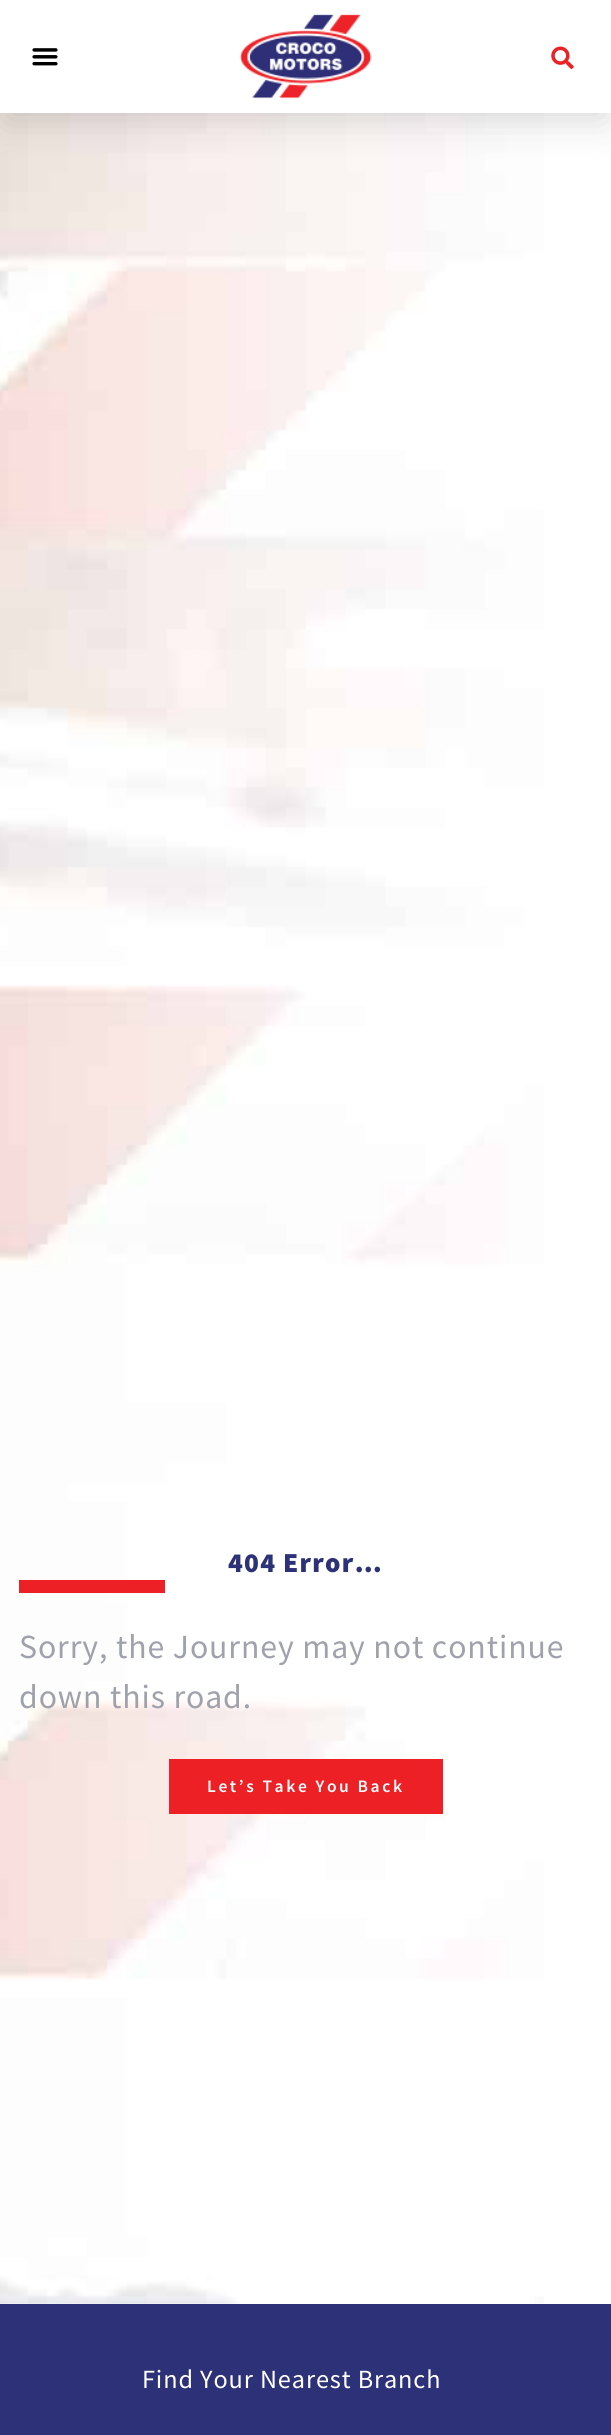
#include <cairo.h>
#include <math.h>
#include <stddef.h>

static cairo_t *ctx;

static void ink(unsigned color) {
    cairo_set_source_rgb(ctx, (color >> 16) / 255.0, (color >> 8 & 255) / 255.0, (color & 255) / 255.0);
}

static void write_spaced(double x, double y, const char *s, double letter, double word) {
    cairo_move_to(ctx, x, y);
    while (*s) {
        char ch[5] = {0};
        int n = 0;
        do ch[n++] = *s++; while ((*s & 0xC0) == 0x80);
        cairo_show_text(ctx, ch);
        cairo_rel_move_to(ctx, letter + word * (*ch == ' '), 0);
    }
}

static void block(double x, double y, double w, double h, unsigned color) {
    ink(color);
    cairo_rectangle(ctx, x, y, w, h);
    cairo_fill(ctx);
}

static void round_path(double x, double y, double w, double h, double r) {
    cairo_new_sub_path(ctx);
    cairo_arc(ctx, x + w - r, y + h - r, r, 0, M_PI / 2);
    cairo_arc(ctx, x + r, y + h - r, r, M_PI / 2, M_PI);
    cairo_arc(ctx, x + r, y + r, r, M_PI, 1.5 * M_PI);
    cairo_arc(ctx, x + w - r, y + r, r, 1.5 * M_PI, 2 * M_PI);
    cairo_close_path(ctx);
}

static void blur_box(double x, double y, double w, double h, double r, double blur, double alpha) {
    cairo_push_group_with_content(ctx, CAIRO_CONTENT_ALPHA);
    cairo_set_operator(ctx, CAIRO_OPERATOR_SOURCE);
    for (int i = 15; i >= -15 && fmin(w, h) + blur * i / 3 > 0; i -= 2) {
        double e = blur * i / 6;
        cairo_set_source_rgba(ctx, 0, 0, 0, alpha * erfc((i - 1) / 8.5) / 2);
        round_path(x - e, y - e, w + 2 * e, h + 2 * e, fmax(0, fmin(r + e + blur * .6, fmin(w, h) / 2 + e)));
        cairo_fill(ctx);
    }
    cairo_pattern_t *soft = cairo_pop_group(ctx);
    cairo_mask(ctx, soft);
    cairo_pattern_destroy(soft);
}

static void paste(const char *path, double x, double y, double w, double h) {
    cairo_surface_t *image = cairo_image_surface_create_from_png(path);
    cairo_save(ctx);
    cairo_set_source_surface(ctx, image, x, y);
    cairo_rectangle(ctx, x, y, w, h);
    cairo_fill(ctx);
    cairo_restore(ctx);
    cairo_surface_destroy(image);
}

int main(void) {
    cairo_surface_t *surface = cairo_image_surface_create(CAIRO_FORMAT_RGB24, 611, 2435);
    ctx = cairo_create(surface);
    cairo_font_options_t *options = cairo_font_options_create();
    cairo_font_options_set_hint_metrics(options, CAIRO_HINT_METRICS_OFF);
    cairo_font_options_set_hint_style(options, CAIRO_HINT_STYLE_NONE);
    cairo_set_font_options(ctx, options);
    cairo_set_miter_limit(ctx, 4);
    ink(0xffffff);
    cairo_paint(ctx);
    paste("pic4.png", 0, 113, 544, 2191);
    ink(0x1e1e1e);
    blur_box(6, 19, 599, 100, 0, 19, 0.18);
    block(0, 0, 611, 113, 0xffffff);
    paste("pic1.png", 32, 48, 26, 18);
    paste("pic2.png", 240, 14, 132, 85);
    paste("pic3.png", 551, 46, 23, 23);
    cairo_select_font_face(ctx, "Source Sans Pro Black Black", CAIRO_FONT_SLANT_NORMAL, CAIRO_FONT_WEIGHT_NORMAL);
    cairo_set_font_size(ctx, 27.5);
    ink(0x2d3177);
    write_spaced(228, 1572, "404 Error…", 1.25, 0);
    block(19, 1580, 146, 13, 0xed2025);
    cairo_select_font_face(ctx, "Source Sans Pro", CAIRO_FONT_SLANT_NORMAL, CAIRO_FONT_WEIGHT_NORMAL);
    cairo_set_font_size(ctx, 33.75);
    ink(0x9fa2ab);
    write_spaced(19, 1658, "Sorry, the Journey may not continue", 0.9, 0);
    write_spaced(19, 1708, "down this road.", 0.9, 0);
    block(169, 1759, 274, 55, 0xed2025);
    cairo_select_font_face(ctx, "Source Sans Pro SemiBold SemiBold", CAIRO_FONT_SLANT_NORMAL, CAIRO_FONT_WEIGHT_NORMAL);
    cairo_set_font_size(ctx, 17.5);
    ink(0xffffff);
    write_spaced(207, 1792, "Let’s Take You Back", 2.6, 0);
    block(0, 2304, 611, 131, 0x2d3177);
    cairo_select_font_face(ctx, "Source Sans Pro", CAIRO_FONT_SLANT_NORMAL, CAIRO_FONT_WEIGHT_NORMAL);
    cairo_set_font_size(ctx, 26.25);
    ink(0xffffff);
    write_spaced(142, 2388, "Find Your Nearest Branch", 0.9, 0);
    cairo_surface_write_to_png(surface, "screenshot.png");
    cairo_font_options_destroy(options);
    cairo_destroy(ctx);
    cairo_surface_destroy(surface);
    return 0;
}
